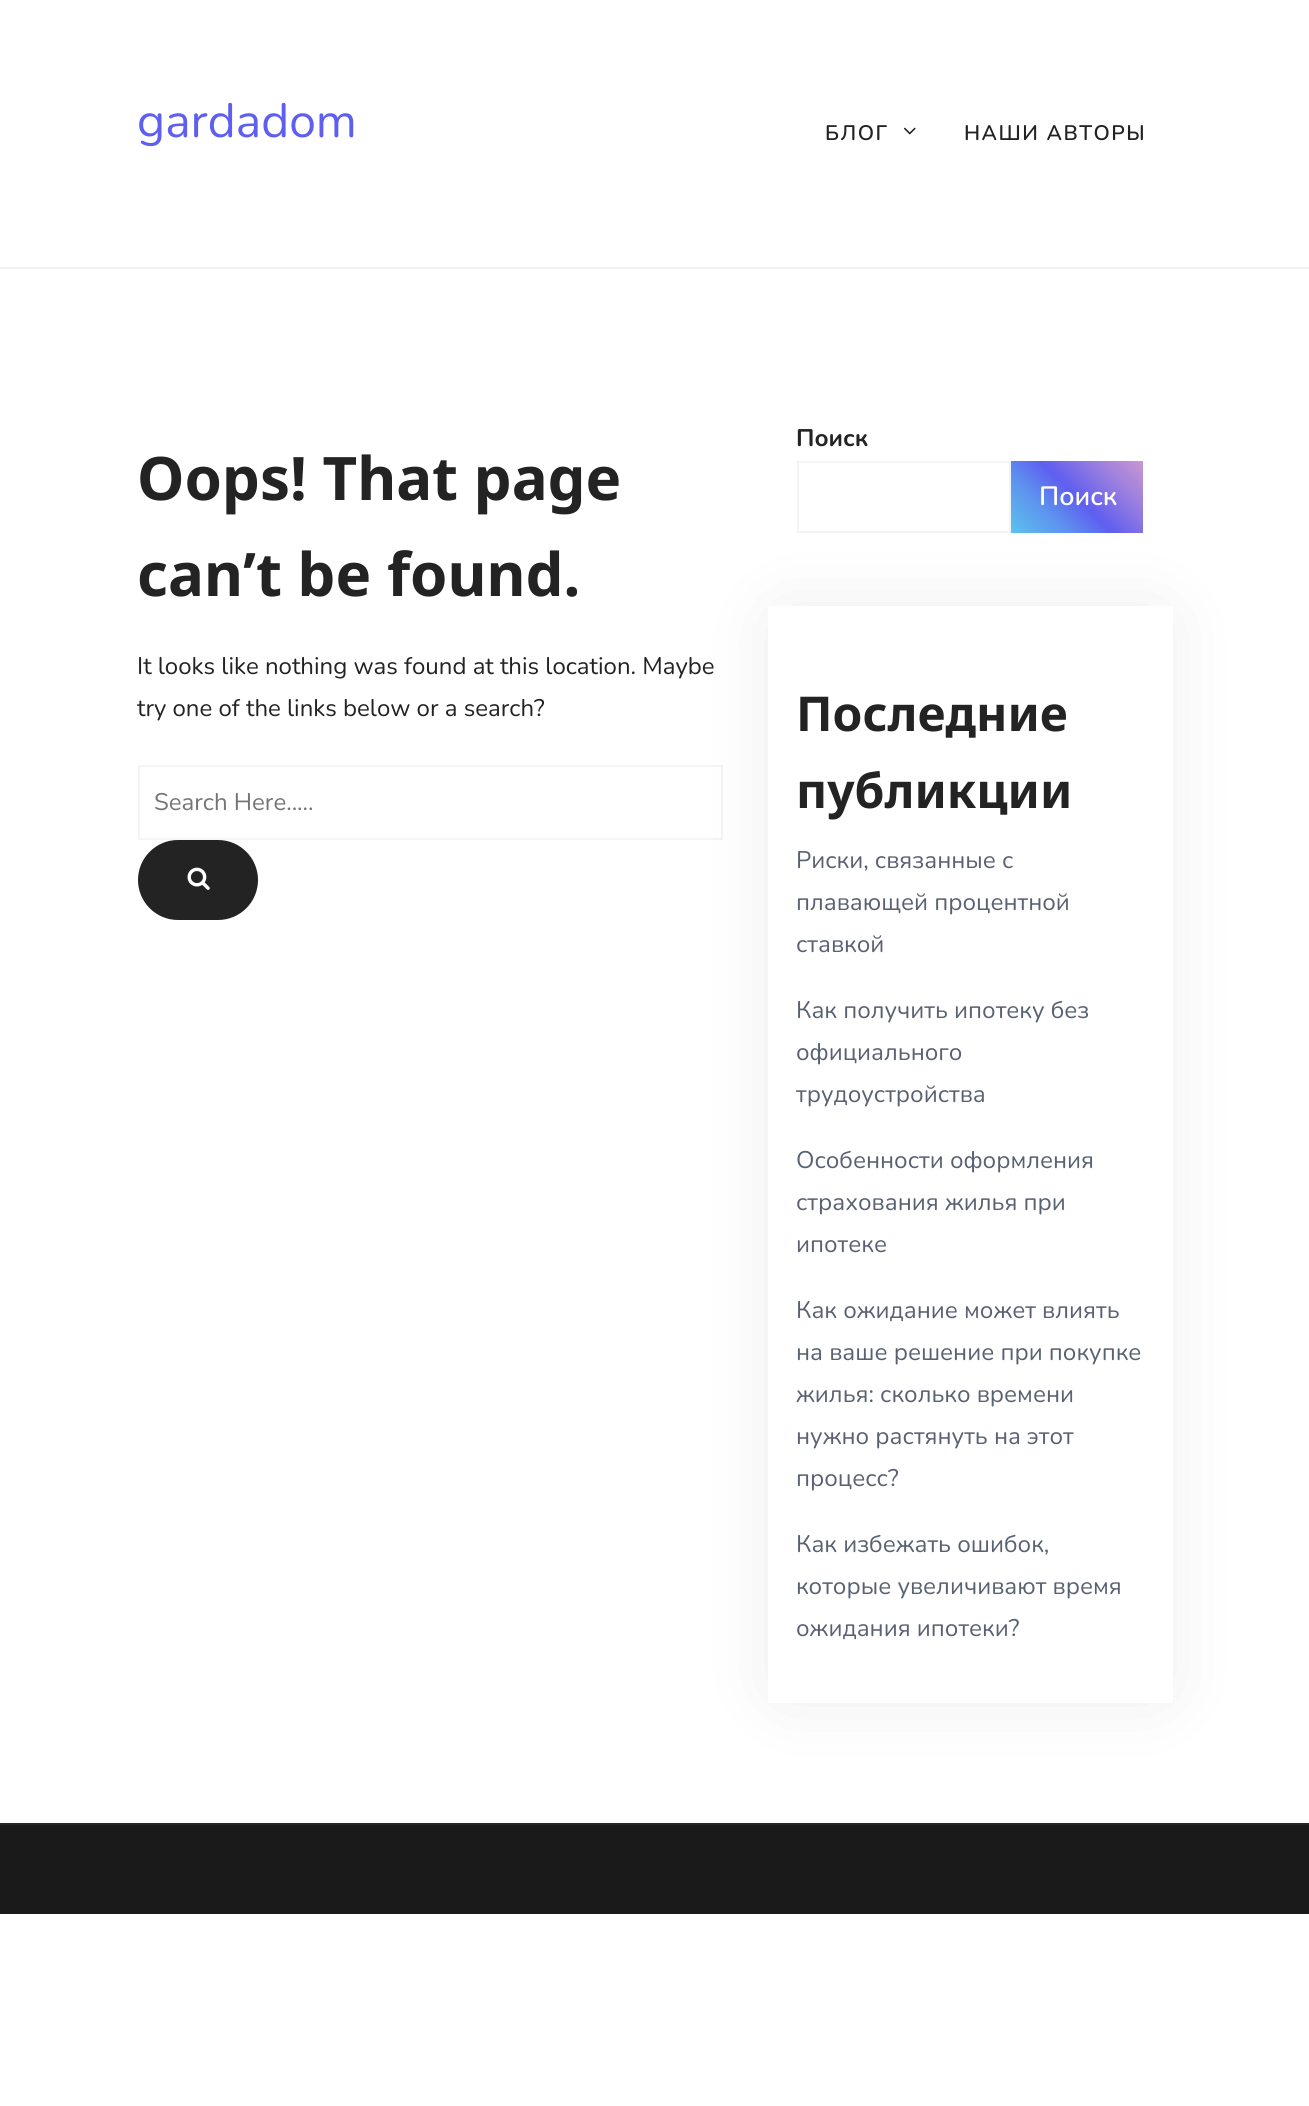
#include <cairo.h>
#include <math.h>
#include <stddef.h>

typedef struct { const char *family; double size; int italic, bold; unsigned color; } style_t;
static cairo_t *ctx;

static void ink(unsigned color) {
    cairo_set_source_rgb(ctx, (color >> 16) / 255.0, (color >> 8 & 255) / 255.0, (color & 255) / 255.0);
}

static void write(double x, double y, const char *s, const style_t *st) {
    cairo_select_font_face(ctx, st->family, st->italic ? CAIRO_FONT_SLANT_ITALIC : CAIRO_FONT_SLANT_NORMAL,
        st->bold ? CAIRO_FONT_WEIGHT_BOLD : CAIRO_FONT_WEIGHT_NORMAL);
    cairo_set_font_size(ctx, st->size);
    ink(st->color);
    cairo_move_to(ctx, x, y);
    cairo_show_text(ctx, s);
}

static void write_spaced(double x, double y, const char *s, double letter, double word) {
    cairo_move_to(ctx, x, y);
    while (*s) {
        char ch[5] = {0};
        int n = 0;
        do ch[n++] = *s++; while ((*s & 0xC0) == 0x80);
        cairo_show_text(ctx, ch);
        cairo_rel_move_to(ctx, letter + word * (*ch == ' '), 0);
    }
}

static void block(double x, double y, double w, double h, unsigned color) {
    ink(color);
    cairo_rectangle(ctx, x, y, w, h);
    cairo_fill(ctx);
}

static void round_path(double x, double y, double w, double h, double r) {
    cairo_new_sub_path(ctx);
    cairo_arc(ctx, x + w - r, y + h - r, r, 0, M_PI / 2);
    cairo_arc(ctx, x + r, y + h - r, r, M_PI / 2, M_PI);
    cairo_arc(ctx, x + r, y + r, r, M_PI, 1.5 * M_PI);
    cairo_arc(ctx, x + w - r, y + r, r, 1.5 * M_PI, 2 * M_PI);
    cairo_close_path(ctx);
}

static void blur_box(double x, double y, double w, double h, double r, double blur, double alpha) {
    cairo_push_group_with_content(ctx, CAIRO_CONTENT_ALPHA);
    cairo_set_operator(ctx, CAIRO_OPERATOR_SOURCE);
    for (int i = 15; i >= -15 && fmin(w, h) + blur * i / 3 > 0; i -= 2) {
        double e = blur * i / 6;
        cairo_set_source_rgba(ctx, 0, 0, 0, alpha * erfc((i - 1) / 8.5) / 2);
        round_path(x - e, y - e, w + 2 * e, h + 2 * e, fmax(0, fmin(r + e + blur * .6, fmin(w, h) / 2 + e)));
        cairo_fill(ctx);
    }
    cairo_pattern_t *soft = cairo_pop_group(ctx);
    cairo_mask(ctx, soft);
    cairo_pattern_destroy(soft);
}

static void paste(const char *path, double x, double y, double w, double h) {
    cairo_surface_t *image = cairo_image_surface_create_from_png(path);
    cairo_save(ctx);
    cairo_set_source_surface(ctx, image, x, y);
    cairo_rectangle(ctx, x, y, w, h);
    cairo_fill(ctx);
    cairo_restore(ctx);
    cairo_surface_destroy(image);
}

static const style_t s1 = {"Nunito", 48, 0, 0, 0x5e5ef0};
static const style_t s2 = {"Noto Sans", 60, 0, 1, 0x242323};
static const style_t s3 = {"Nunito", 24, 0, 0, 0x242323};
static const style_t s4 = {"Nunito", 24, 0, 0, 0x757575};
static const style_t s5 = {"Nunito", 24, 0, 1, 0x242323};
static const style_t s6 = {"Nunito SemiBold", 26.5, 0, 0, 0xffffff};
static const style_t s7 = {"Noto Sans", 48, 0, 1, 0x242323};
static const style_t s8 = {"Nunito", 24, 0, 0, 0x596172};

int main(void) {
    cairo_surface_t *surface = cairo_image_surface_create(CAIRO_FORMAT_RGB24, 1309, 2106);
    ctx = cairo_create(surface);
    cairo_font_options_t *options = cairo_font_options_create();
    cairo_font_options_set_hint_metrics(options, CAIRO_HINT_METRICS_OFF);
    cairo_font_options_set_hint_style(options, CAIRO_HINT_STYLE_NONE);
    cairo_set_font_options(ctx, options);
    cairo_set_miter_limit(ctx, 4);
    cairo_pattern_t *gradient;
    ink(0xffffff);
    cairo_paint(ctx);
    block(0, 267, 1309, 2, 0xf1f1f1);
    write(137, 137, "gardadom", &s1);
    cairo_select_font_face(ctx, "Nunito SemiBold", CAIRO_FONT_SLANT_NORMAL, CAIRO_FONT_WEIGHT_NORMAL);
    cairo_set_font_size(ctx, 21);
    ink(0x242323);
    write_spaced(825, 140, "БЛОГ", 1.5, 0);
    paste("pic1.png", 903, 127, 13, 8);
    write_spaced(964, 140, "НАШИ АВТОРЫ", 1.5, 0);
    write(137, 500, "Oops! That page", &s2);
    write(137, 596, "can’t be found.", &s2);
    write(137, 674, "It looks like nothing was found at this location. Maybe", &s3);
    write(137, 716, "try one of the links below or a search?", &s3);
    cairo_rectangle(ctx, 139, 766, 583, 73);
    ink(0xf3f3f8);
    cairo_stroke(ctx);
    write(154, 810, "Search Here.....", &s4);
    ink(0x242323);
    round_path(139, 841, 118, 78, 39);
    cairo_fill_preserve(ctx);
    cairo_stroke(ctx);
    paste("pic2.png", 187, 867, 23, 23);
    write(796, 446, "Поиск", &s5);
    ink(0x000000);
    blur_box(783, 621, 375, 1067, 0, 37.5, 0.1);
    cairo_rectangle(ctx, 798, 462, 212, 70);
    ink(0xf3f3f8);
    cairo_stroke(ctx);
    gradient = cairo_pattern_create_linear(1026, 548, 1128, 446);
    cairo_pattern_add_color_stop_rgba(gradient, 0, 0.361, 0.765, 0.933, 1);
    cairo_pattern_add_color_stop_rgba(gradient, 0.29, 0.365, 0.569, 0.937, 1);
    cairo_pattern_add_color_stop_rgba(gradient, 0.5, 0.369, 0.369, 0.941, 1);
    cairo_pattern_add_color_stop_rgba(gradient, 0.73, 0.58, 0.482, 0.882, 1);
    cairo_pattern_add_color_stop_rgba(gradient, 1, 0.792, 0.592, 0.824, 1);
    cairo_set_source(ctx, gradient);
    cairo_pattern_destroy(gradient);
    cairo_rectangle(ctx, 1011, 461, 132, 72);
    cairo_fill(ctx);
    write(1039, 505, "Поиск", &s6);
    block(768, 606, 405, 1097, 0xffffff);
    write(796, 731, "Последние", &s7);
    write(796, 808, "публикции", &s7);
    write(796, 868, "Риски, связанные с", &s8);
    write(796, 910, "плавающей процентной", &s8);
    write(796, 952, "ставкой", &s8);
    write(796, 1018, "Как получить ипотеку без", &s8);
    write(796, 1060, "официального", &s8);
    write(796, 1102, "трудоустройства", &s8);
    write(796, 1168, "Особенности оформления", &s8);
    write(796, 1210, "страхования жилья при", &s8);
    write(796, 1252, "ипотеке", &s8);
    write(796, 1318, "Как ожидание может влиять", &s8);
    write(796, 1360, "на ваше решение при покупке", &s8);
    write(796, 1402, "жилья: сколько времени", &s8);
    write(796, 1444, "нужно растянуть на этот", &s8);
    write(796, 1486, "процесс?", &s8);
    write(796, 1552, "Как избежать ошибок,", &s8);
    write(796, 1594, "которые увеличивают время", &s8);
    write(796, 1636, "ожидания ипотеки?", &s8);
    block(0, 1825, 1309, 89, 0x1a1a1a);
    block(0, 1823, 1309, 2, 0x262626);
    cairo_surface_write_to_png(surface, "screenshot.png");
    cairo_font_options_destroy(options);
    cairo_destroy(ctx);
    cairo_surface_destroy(surface);
    return 0;
}
